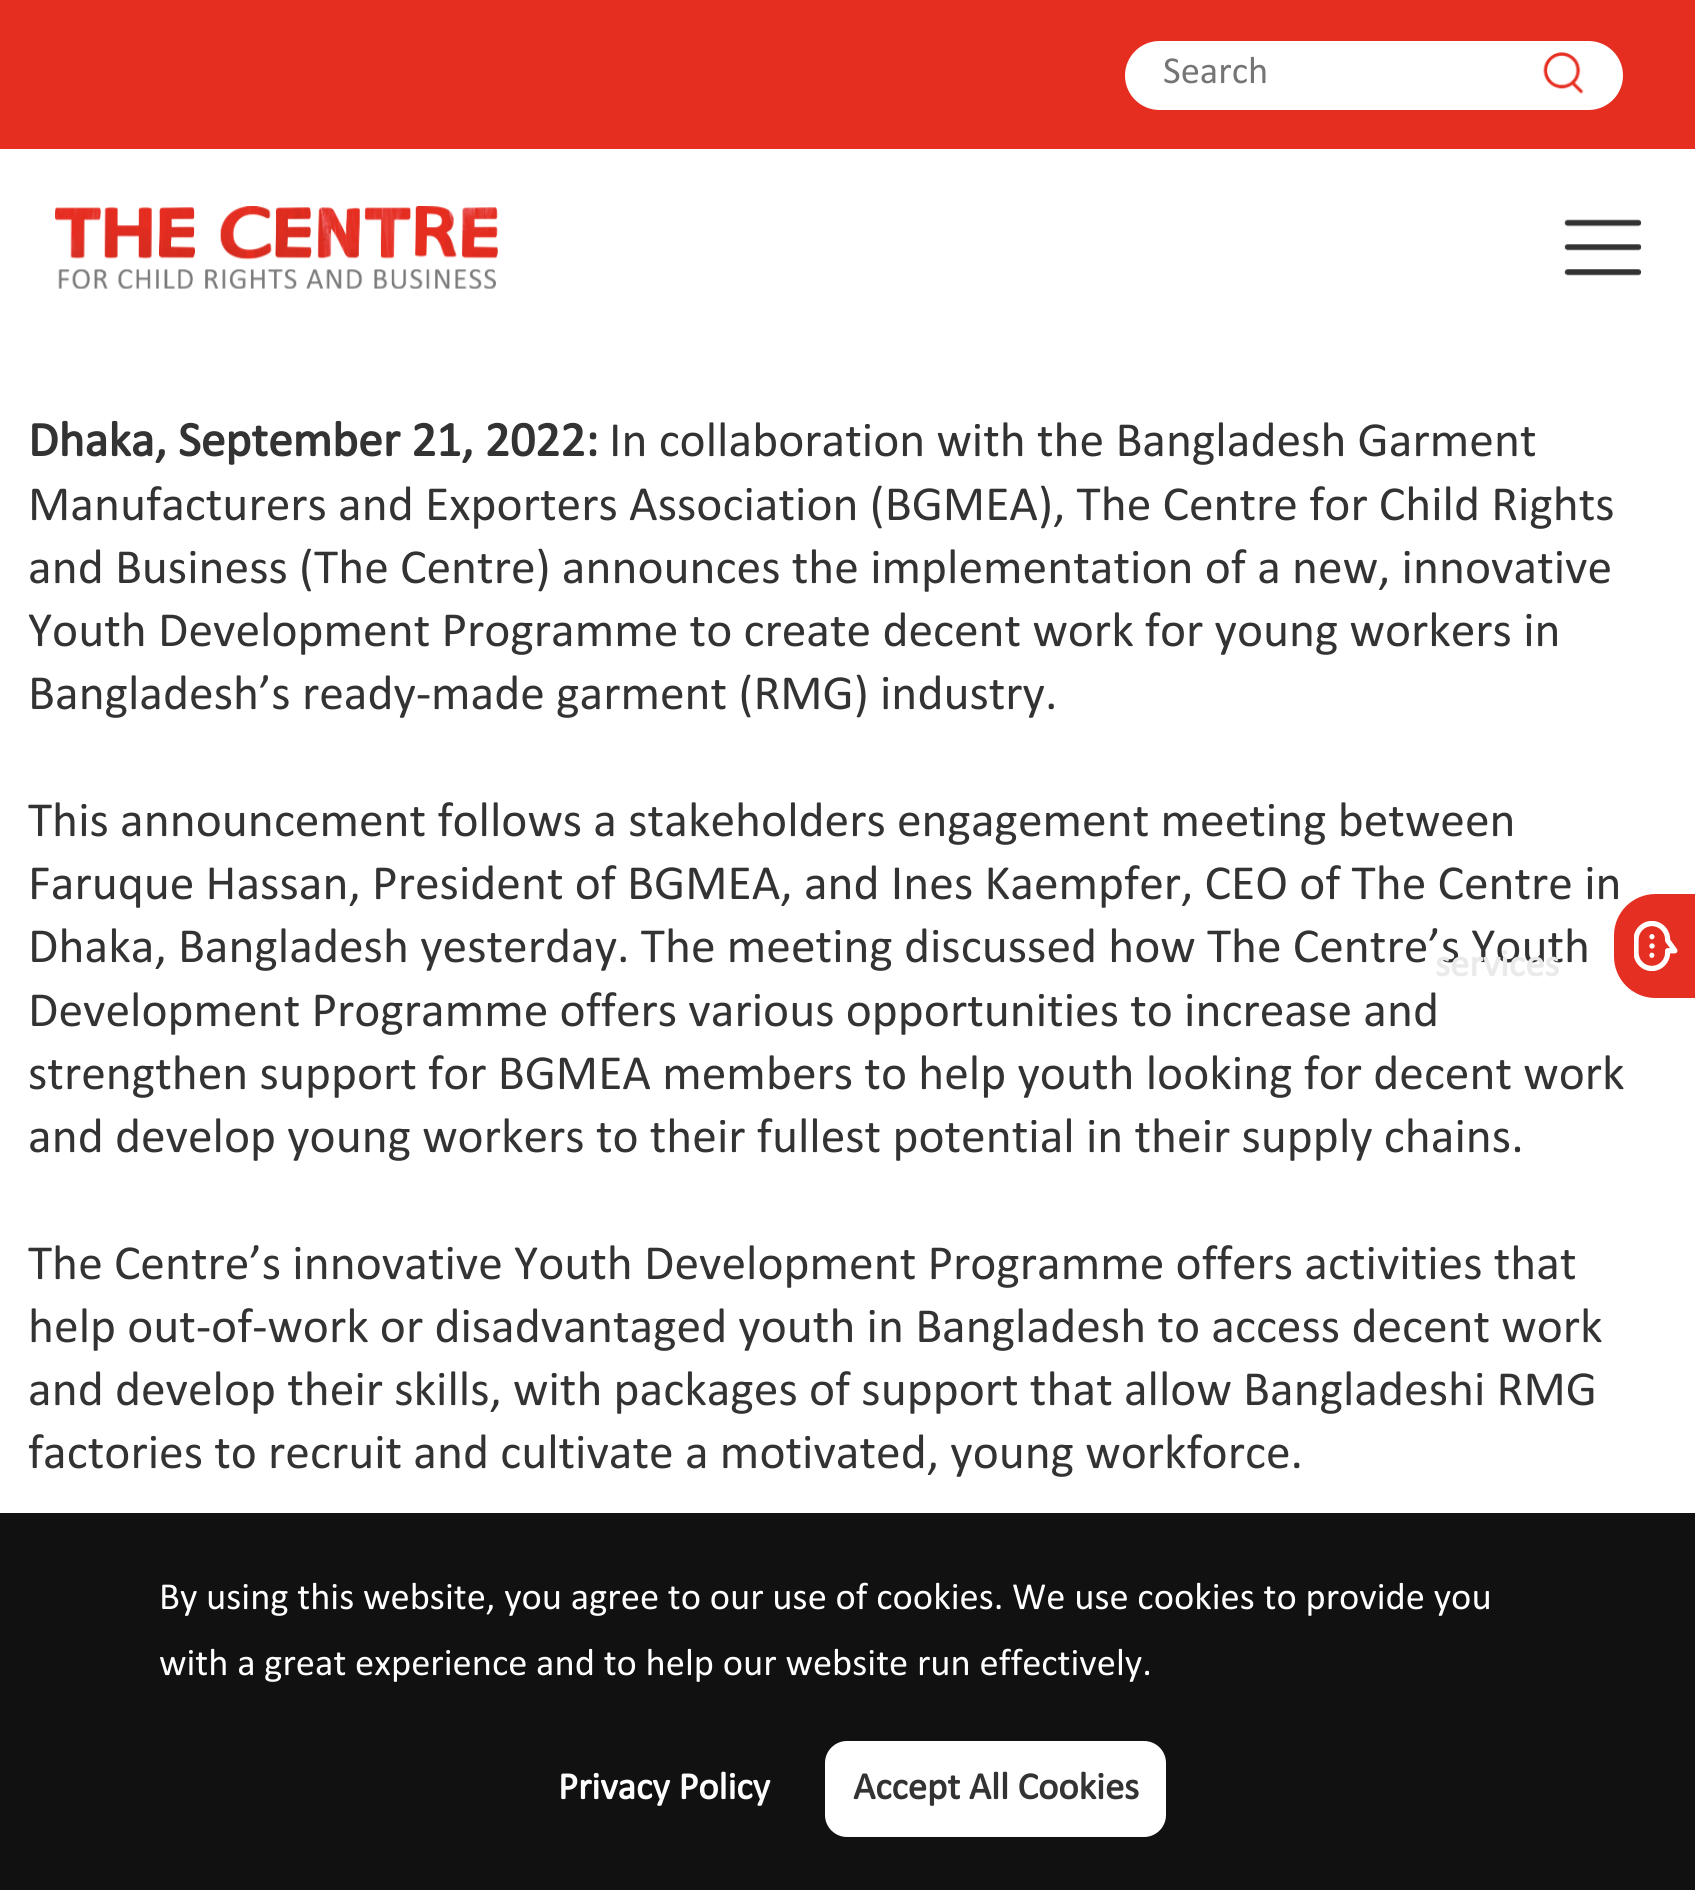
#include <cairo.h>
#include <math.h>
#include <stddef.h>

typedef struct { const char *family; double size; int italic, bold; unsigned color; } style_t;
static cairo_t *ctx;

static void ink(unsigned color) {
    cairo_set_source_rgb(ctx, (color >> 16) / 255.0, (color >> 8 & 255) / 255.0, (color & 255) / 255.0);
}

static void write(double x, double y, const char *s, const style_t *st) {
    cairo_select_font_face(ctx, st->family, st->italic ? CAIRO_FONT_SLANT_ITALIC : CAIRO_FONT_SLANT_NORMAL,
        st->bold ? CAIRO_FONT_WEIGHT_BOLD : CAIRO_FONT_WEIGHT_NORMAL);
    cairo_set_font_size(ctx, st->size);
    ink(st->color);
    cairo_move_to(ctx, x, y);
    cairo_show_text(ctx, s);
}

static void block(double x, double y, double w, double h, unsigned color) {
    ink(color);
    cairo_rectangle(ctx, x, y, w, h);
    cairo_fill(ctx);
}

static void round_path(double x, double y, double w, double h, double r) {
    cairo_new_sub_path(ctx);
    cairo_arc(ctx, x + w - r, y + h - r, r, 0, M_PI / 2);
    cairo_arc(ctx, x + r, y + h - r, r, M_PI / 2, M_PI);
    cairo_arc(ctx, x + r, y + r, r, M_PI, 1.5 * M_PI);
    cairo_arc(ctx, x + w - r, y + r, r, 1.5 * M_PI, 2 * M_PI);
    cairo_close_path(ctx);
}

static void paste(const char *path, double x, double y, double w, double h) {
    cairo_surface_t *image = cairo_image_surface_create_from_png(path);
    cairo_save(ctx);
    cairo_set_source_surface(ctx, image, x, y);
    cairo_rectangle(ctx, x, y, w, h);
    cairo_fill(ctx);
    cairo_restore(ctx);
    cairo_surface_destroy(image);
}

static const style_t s1 = {"Calibri", 38.5, 0, 0, 0x757575};
static const style_t s2 = {"Calibri", 49.5, 0, 1, 0x333333};
static const style_t s3 = {"Calibri", 49.5, 0, 0, 0x333333};
static const style_t s4 = {"Calibri", 38.5, 0, 1, 0xeaeaea};
static const style_t s5 = {"Calibri", 38.5, 0, 0, 0xffffff};
static const style_t s6 = {"Calibri", 38.5, 0, 1, 0xffffff};
static const style_t s7 = {"Calibri", 38.5, 0, 1, 0x333333};

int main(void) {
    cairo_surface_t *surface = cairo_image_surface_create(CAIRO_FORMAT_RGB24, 1695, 1890);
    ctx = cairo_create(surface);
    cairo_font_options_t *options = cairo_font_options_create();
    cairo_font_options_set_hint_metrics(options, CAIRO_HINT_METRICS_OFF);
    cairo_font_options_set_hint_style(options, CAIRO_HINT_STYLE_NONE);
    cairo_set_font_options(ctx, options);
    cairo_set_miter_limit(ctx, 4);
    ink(0xffffff);
    cairo_paint(ctx);
    block(0, 0, 1695, 149, 0xe52d20);
    ink(0xffffff);
    round_path(1125, 41, 498, 69, 34.5);
    cairo_fill(ctx);
    write(1163, 83, "Search", &s1);
    paste("pic1.png", 1543, 52, 41, 42);
    paste("pic2.png", 55, 206, 443, 83);
    paste("pic3.png", 1564, 219, 78, 57);
    write(28, 456, "Dhaka, September 21, 2022:", &s2);
    write(609, 456, "In collaboration with the Bangladesh Garment", &s3);
    write(28, 520, "Manufacturers and Exporters Association (BGMEA), The Centre for Child Rights", &s3);
    write(28, 583, "and Business (The Centre) announces the implementation of a new, innovative", &s3);
    write(28, 646, "Youth Development Programme to create decent work for young workers in", &s3);
    write(28, 709, "Bangladesh’s ready-made garment (RMG) industry.", &s3);
    write(28, 836, "This announcement follows a stakeholders engagement meeting between", &s3);
    write(28, 899, "Faruque Hassan, President of BGMEA, and Ines Kaempfer, CEO of The Centre in", &s3);
    write(28, 962, "Dhaka, Bangladesh yesterday. The meeting discussed how The Centre’s Youth", &s3);
    write(28, 1026, "Development Programme offers various opportunities to increase and", &s3);
    write(28, 1089, "strengthen support for BGMEA members to help youth looking for decent work", &s3);
    write(28, 1152, "and develop young workers to their fullest potential in their supply chains.", &s3);
    write(28, 1279, "The Centre’s innovative Youth Development Programme offers activities that", &s3);
    write(28, 1342, "help out-of-work or disadvantaged youth in Bangladesh to access decent work", &s3);
    write(28, 1405, "and develop their skills, with packages of support that allow Bangladeshi RMG", &s3);
    write(28, 1468, "factories to recruit and cultivate a motivated, young workforce.", &s3);
    write(1435, 976, "services", &s4);
    ink(0xe52f22);
    cairo_new_path(ctx);
    cairo_move_to(ctx, 1655.5, 894);
    cairo_line_to(ctx, 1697, 894);
    cairo_line_to(ctx, 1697, 998);
    cairo_line_to(ctx, 1655.5, 998);
    cairo_curve_to(ctx, 1632.5, 998, 1614, 979.5, 1614, 956.5);
    cairo_line_to(ctx, 1614, 935.5);
    cairo_curve_to(ctx, 1614, 912.5, 1632.5, 894, 1655.5, 894);
    cairo_close_path(ctx);
    cairo_fill(ctx);
    paste("pic4.png", 1634, 921, 44, 50);
    block(0, 1513, 1695, 377, 0x111111);
    write(159, 1609, "By using this website, you agree to our use of cookies. We use cookies to provide you", &s5);
    write(159, 1675, "with a great experience and to help our website run effectively.", &s5);
    write(558, 1799, "Privacy Policy", &s6);
    round_path(825, 1741, 341, 96, 22);
    cairo_fill(ctx);
    write(853, 1799, "Accept All Cookies", &s7);
    cairo_surface_write_to_png(surface, "screenshot.png");
    cairo_font_options_destroy(options);
    cairo_destroy(ctx);
    cairo_surface_destroy(surface);
    return 0;
}
